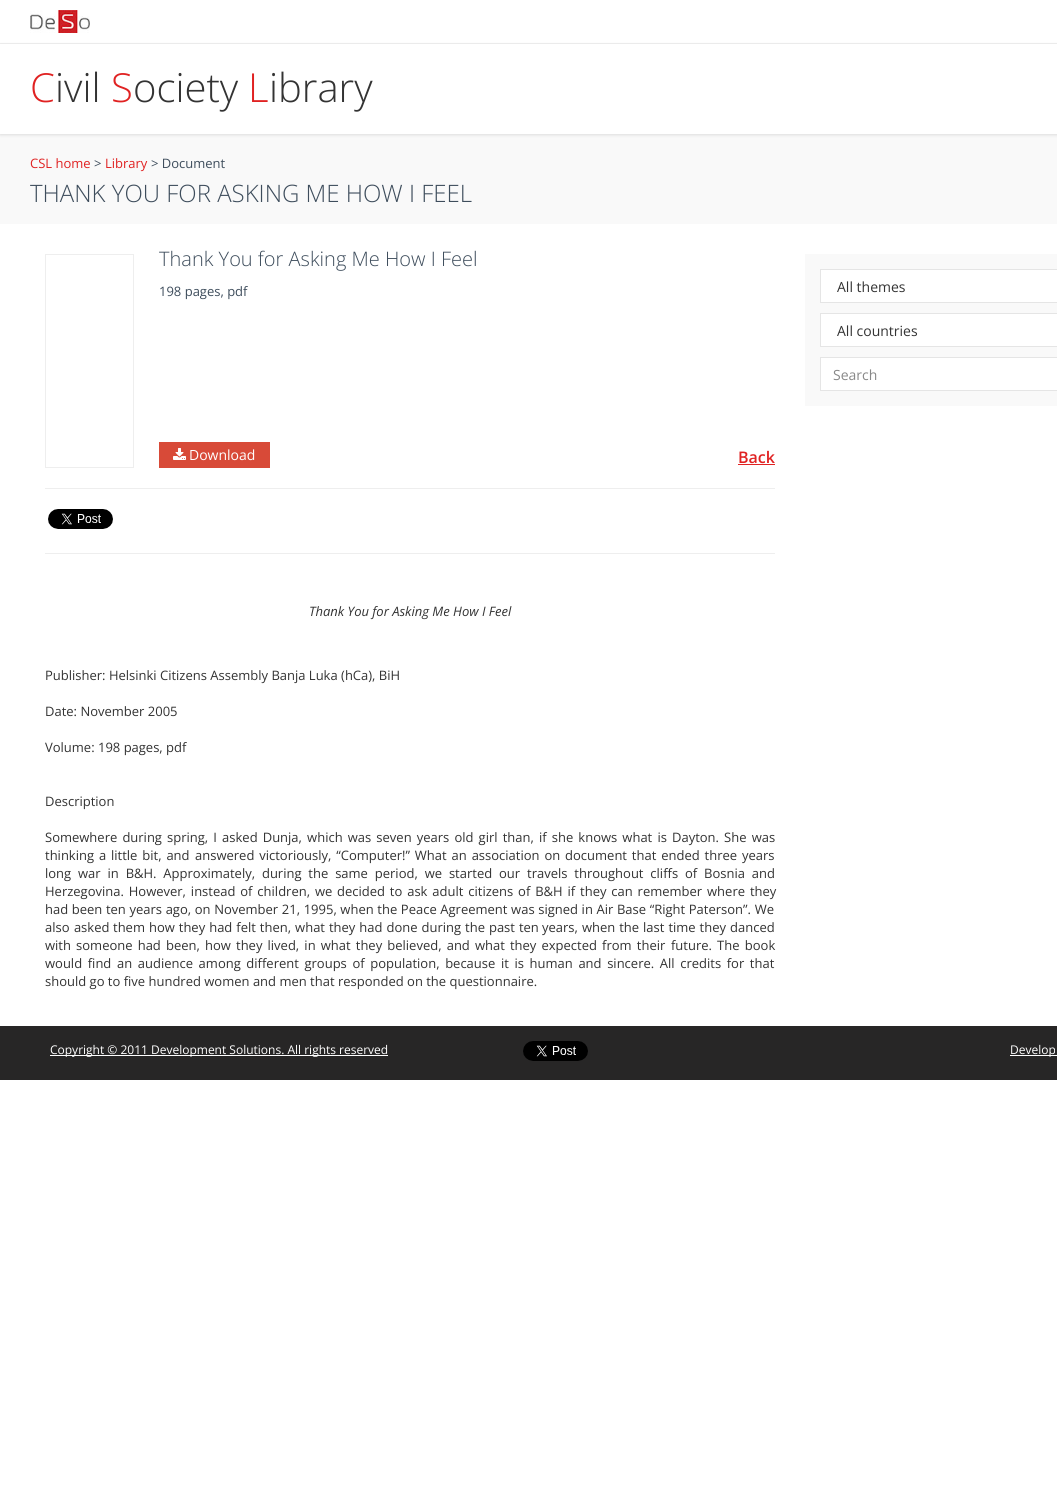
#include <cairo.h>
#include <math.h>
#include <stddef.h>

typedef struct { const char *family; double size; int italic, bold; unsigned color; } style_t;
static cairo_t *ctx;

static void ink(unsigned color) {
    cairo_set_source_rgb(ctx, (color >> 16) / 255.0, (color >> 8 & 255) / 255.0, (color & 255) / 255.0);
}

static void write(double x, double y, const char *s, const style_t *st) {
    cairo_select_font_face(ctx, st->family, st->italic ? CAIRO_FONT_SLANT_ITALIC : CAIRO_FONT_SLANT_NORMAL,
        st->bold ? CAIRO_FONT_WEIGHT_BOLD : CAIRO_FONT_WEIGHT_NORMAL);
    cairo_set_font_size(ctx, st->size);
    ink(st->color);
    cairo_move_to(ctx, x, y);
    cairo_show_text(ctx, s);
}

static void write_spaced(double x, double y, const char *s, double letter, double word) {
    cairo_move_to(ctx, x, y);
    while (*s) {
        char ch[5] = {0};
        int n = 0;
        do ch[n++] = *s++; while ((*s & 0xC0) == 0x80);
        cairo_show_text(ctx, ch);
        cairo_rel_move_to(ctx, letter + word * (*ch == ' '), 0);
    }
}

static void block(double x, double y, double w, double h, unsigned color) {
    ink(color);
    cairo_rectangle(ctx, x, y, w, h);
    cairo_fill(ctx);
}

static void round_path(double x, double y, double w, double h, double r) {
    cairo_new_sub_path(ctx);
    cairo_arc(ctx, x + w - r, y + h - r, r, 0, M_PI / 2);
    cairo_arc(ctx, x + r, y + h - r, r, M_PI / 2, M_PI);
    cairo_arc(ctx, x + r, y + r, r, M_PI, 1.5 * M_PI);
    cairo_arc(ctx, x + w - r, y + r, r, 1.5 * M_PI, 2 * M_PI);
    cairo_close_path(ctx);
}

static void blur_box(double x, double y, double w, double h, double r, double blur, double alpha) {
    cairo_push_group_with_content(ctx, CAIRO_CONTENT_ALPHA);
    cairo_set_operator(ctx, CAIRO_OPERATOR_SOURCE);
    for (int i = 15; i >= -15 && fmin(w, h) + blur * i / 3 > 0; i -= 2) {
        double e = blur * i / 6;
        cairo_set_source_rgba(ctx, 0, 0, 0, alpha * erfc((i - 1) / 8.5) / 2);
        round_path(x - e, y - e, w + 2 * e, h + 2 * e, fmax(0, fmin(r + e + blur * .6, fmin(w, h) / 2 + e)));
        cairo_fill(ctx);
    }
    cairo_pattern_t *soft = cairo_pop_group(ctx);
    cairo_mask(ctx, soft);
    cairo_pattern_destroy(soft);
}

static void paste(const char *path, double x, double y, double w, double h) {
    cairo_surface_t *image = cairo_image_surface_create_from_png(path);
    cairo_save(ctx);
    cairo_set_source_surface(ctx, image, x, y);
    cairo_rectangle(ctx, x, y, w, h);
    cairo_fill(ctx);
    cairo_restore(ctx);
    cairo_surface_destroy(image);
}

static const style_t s1 = {"Open Sans Light", 40, 0, 0, 0xe02222};
static const style_t s2 = {"Open Sans Light", 40, 0, 0, 0x333333};
static const style_t s3 = {"Open Sans", 13, 0, 0, 0xe02222};
static const style_t s4 = {"Open Sans", 13, 0, 0, 0x3e4d5c};
static const style_t s5 = {"Open Sans Light", 24, 0, 0, 0x3e4d5c};
static const style_t s6 = {"Open Sans Light", 20, 0, 0, 0x3e4d5c};
static const style_t s7 = {"Open Sans", 14, 0, 0, 0xffffff};
static const style_t s8 = {"Open Sans SemiBold", 16, 0, 0, 0xe02222};
static const style_t s9 = {"Open Sans", 13, 1, 0, 0x333333};
static const style_t s10 = {"Open Sans", 13, 0, 0, 0x333333};
static const style_t s11 = {"Open Sans", 14, 0, 0, 0x333333};
static const style_t s12 = {"Open Sans", 14, 0, 0, 0x888888};
static const style_t s13 = {"Open Sans", 12, 0, 0, 0xffffff};

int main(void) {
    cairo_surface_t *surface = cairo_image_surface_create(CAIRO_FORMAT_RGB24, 1057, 1507);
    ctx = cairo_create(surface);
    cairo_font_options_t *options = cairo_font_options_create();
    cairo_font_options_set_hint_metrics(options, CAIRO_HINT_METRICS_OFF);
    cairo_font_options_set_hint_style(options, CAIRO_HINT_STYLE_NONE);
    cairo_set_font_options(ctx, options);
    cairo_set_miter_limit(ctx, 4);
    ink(0xffffff);
    cairo_paint(ctx);
    block(0, 43, 1057, 1, 0xeeeeee);
    paste("pic1.png", 30, 10, 60, 23);
    block(0, 134, 1057, 90, 0xf9f9f9);
    cairo_save(ctx);
    cairo_set_fill_rule(ctx, CAIRO_FILL_RULE_EVEN_ODD);
    cairo_new_path(ctx);
    cairo_move_to(ctx, 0, 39);
    cairo_line_to(ctx, 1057, 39);
    cairo_line_to(ctx, 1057, 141);
    cairo_line_to(ctx, 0, 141);
    cairo_close_path(ctx);
    cairo_move_to(ctx, 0, 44);
    cairo_line_to(ctx, 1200, 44);
    cairo_line_to(ctx, 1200, 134);
    cairo_line_to(ctx, 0, 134);
    cairo_close_path(ctx);
    cairo_clip(ctx);
    ink(0xdddddd);
    blur_box(0, 45, 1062, 90, 0, 1.5, 1);
    cairo_restore(ctx);
    write(30, 102, "C", &s1);
    write(55, 102, "ivil", &s2);
    write(111, 102, "S", &s1);
    write(133, 102, "ociety", &s2);
    write(248, 102, "L", &s1);
    write(269, 102, "ibrary", &s2);
    write(30, 168, "CSL home", &s3);
    write(94, 168, ">", &s4);
    write(105, 168, "Library", &s3);
    write(151, 168, "> Document", &s4);
    write(30, 202, "THANK YOU FOR ASKING ME HOW I FEEL", &s5);
    block(45, 254, 89, 1, 0xeeeeee);
    block(133, 254, 1, 214, 0xeeeeee);
    block(45, 467, 89, 1, 0xeeeeee);
    block(45, 254, 1, 214, 0xeeeeee);
    write(159, 266, "Thank You for Asking Me How I Feel", &s6);
    write(159, 296, "198 pages, pdf", &s4);
    block(159, 442, 111, 26, 0xd84a38);
    paste("pic2.png", 173, 448, 13, 12);
    write(189, 460, "Download", &s7);
    write(738, 463, "Back", &s8);
    block(738, 464, 37, 1, 0xe02222);
    block(45, 488, 730, 1, 0xeeeeee);
    paste("pic3.png", 48, 509, 65, 20);
    block(45, 553, 730, 1, 0xeeeeee);
    write(309, 616, "Thank You for Asking Me How I Feel", &s9);
    write(45, 680, "Publisher: Helsinki Citizens Assembly Banja Luka (hCa), BiH", &s10);
    write(45, 716, "Date: November 2005", &s10);
    write(45, 752, "Volume: 198 pages, pdf", &s10);
    write(45, 806, "Description", &s10);
    write_spaced(45, 842, "Somewhere during spring, I asked Dunja, which was seven years old girl than, if she knows what is Dayton. She was", 0, 1.75);
    write_spaced(45, 860, "thinking a little bit, and", 0, 1.5);
    write_spaced(195, 860, "answered victoriously, “Computer!” What an association on document that ended three years", 0, 1.5);
    write_spaced(45, 878, "long war in B&H. Approximately, during the same period, we started our travels throughout cliffs of Bosnia and", 0, 3.5);
    write_spaced(45, 896, "Herzegovina. However, instead of children, we", 0, 1.5);
    write_spaced(337, 896, "decided to ask adult citizens of B&H if they can remember where they", 0, 1.5);
    write_spaced(45, 914, "had been ten years ago, on November 21, 1995, when the Peace Agreement was signed in Air Base “Right Paterson”. We", 0, 0.25);
    write_spaced(45, 932, "also asked", 0, 1);
    write_spaced(113, 932, "them how they had felt then, what they had done during the past ten", 0, 0.6);
    write_spaced(542, 932, "years, when the last time they danced", 0, 0.6);
    write_spaced(45, 950, "with someone had been, how", 0, 1.75);
    write_spaced(236, 950, "they lived, in what they believed, and what they expected from their", 0, 1.75);
    write(671, 950, "future.", &s10);
    write_spaced(717, 950, "The book", 0, 2);
    write_spaced(45, 968, "would find an audience among different groups of population, because it is human and sincere. All credits for that", 0, 2.25);
    write(45, 986, "should go to five hundred women and men that responded on the questionnaire.", &s10);
    block(805, 254, 252, 152, 0xf9f9f9);
    ink(0xffffff);
    cairo_rectangle(ctx, 820.5, 269.5, 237, 33);
    cairo_fill_preserve(ctx);
    ink(0xe5e5e5);
    cairo_set_line_width(ctx, 1);
    cairo_stroke(ctx);
    write(837, 292, "All themes", &s11);
    ink(0xffffff);
    cairo_rectangle(ctx, 820.5, 313.5, 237, 33);
    cairo_fill_preserve(ctx);
    ink(0xe5e5e5);
    cairo_stroke(ctx);
    write(837, 336, "All countries", &s11);
    ink(0xffffff);
    cairo_rectangle(ctx, 820.5, 357.5, 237, 33);
    cairo_fill_preserve(ctx);
    ink(0xe5e5e5);
    cairo_stroke(ctx);
    write(833, 380, "Search", &s12);
    block(0, 1026, 1057, 54, 0x272626);
    block(50, 1055, 338, 1, 0xffffff);
    write(50, 1054, "Copyright © 2011 Development Solutions. All rights reserved", &s13);
    paste("pic4.png", 523, 1041, 65, 20);
    block(1010, 1055, 47, 1, 0xffffff);
    write(1010, 1054, "Develop", &s13);
    cairo_surface_write_to_png(surface, "screenshot.png");
    cairo_font_options_destroy(options);
    cairo_destroy(ctx);
    cairo_surface_destroy(surface);
    return 0;
}
